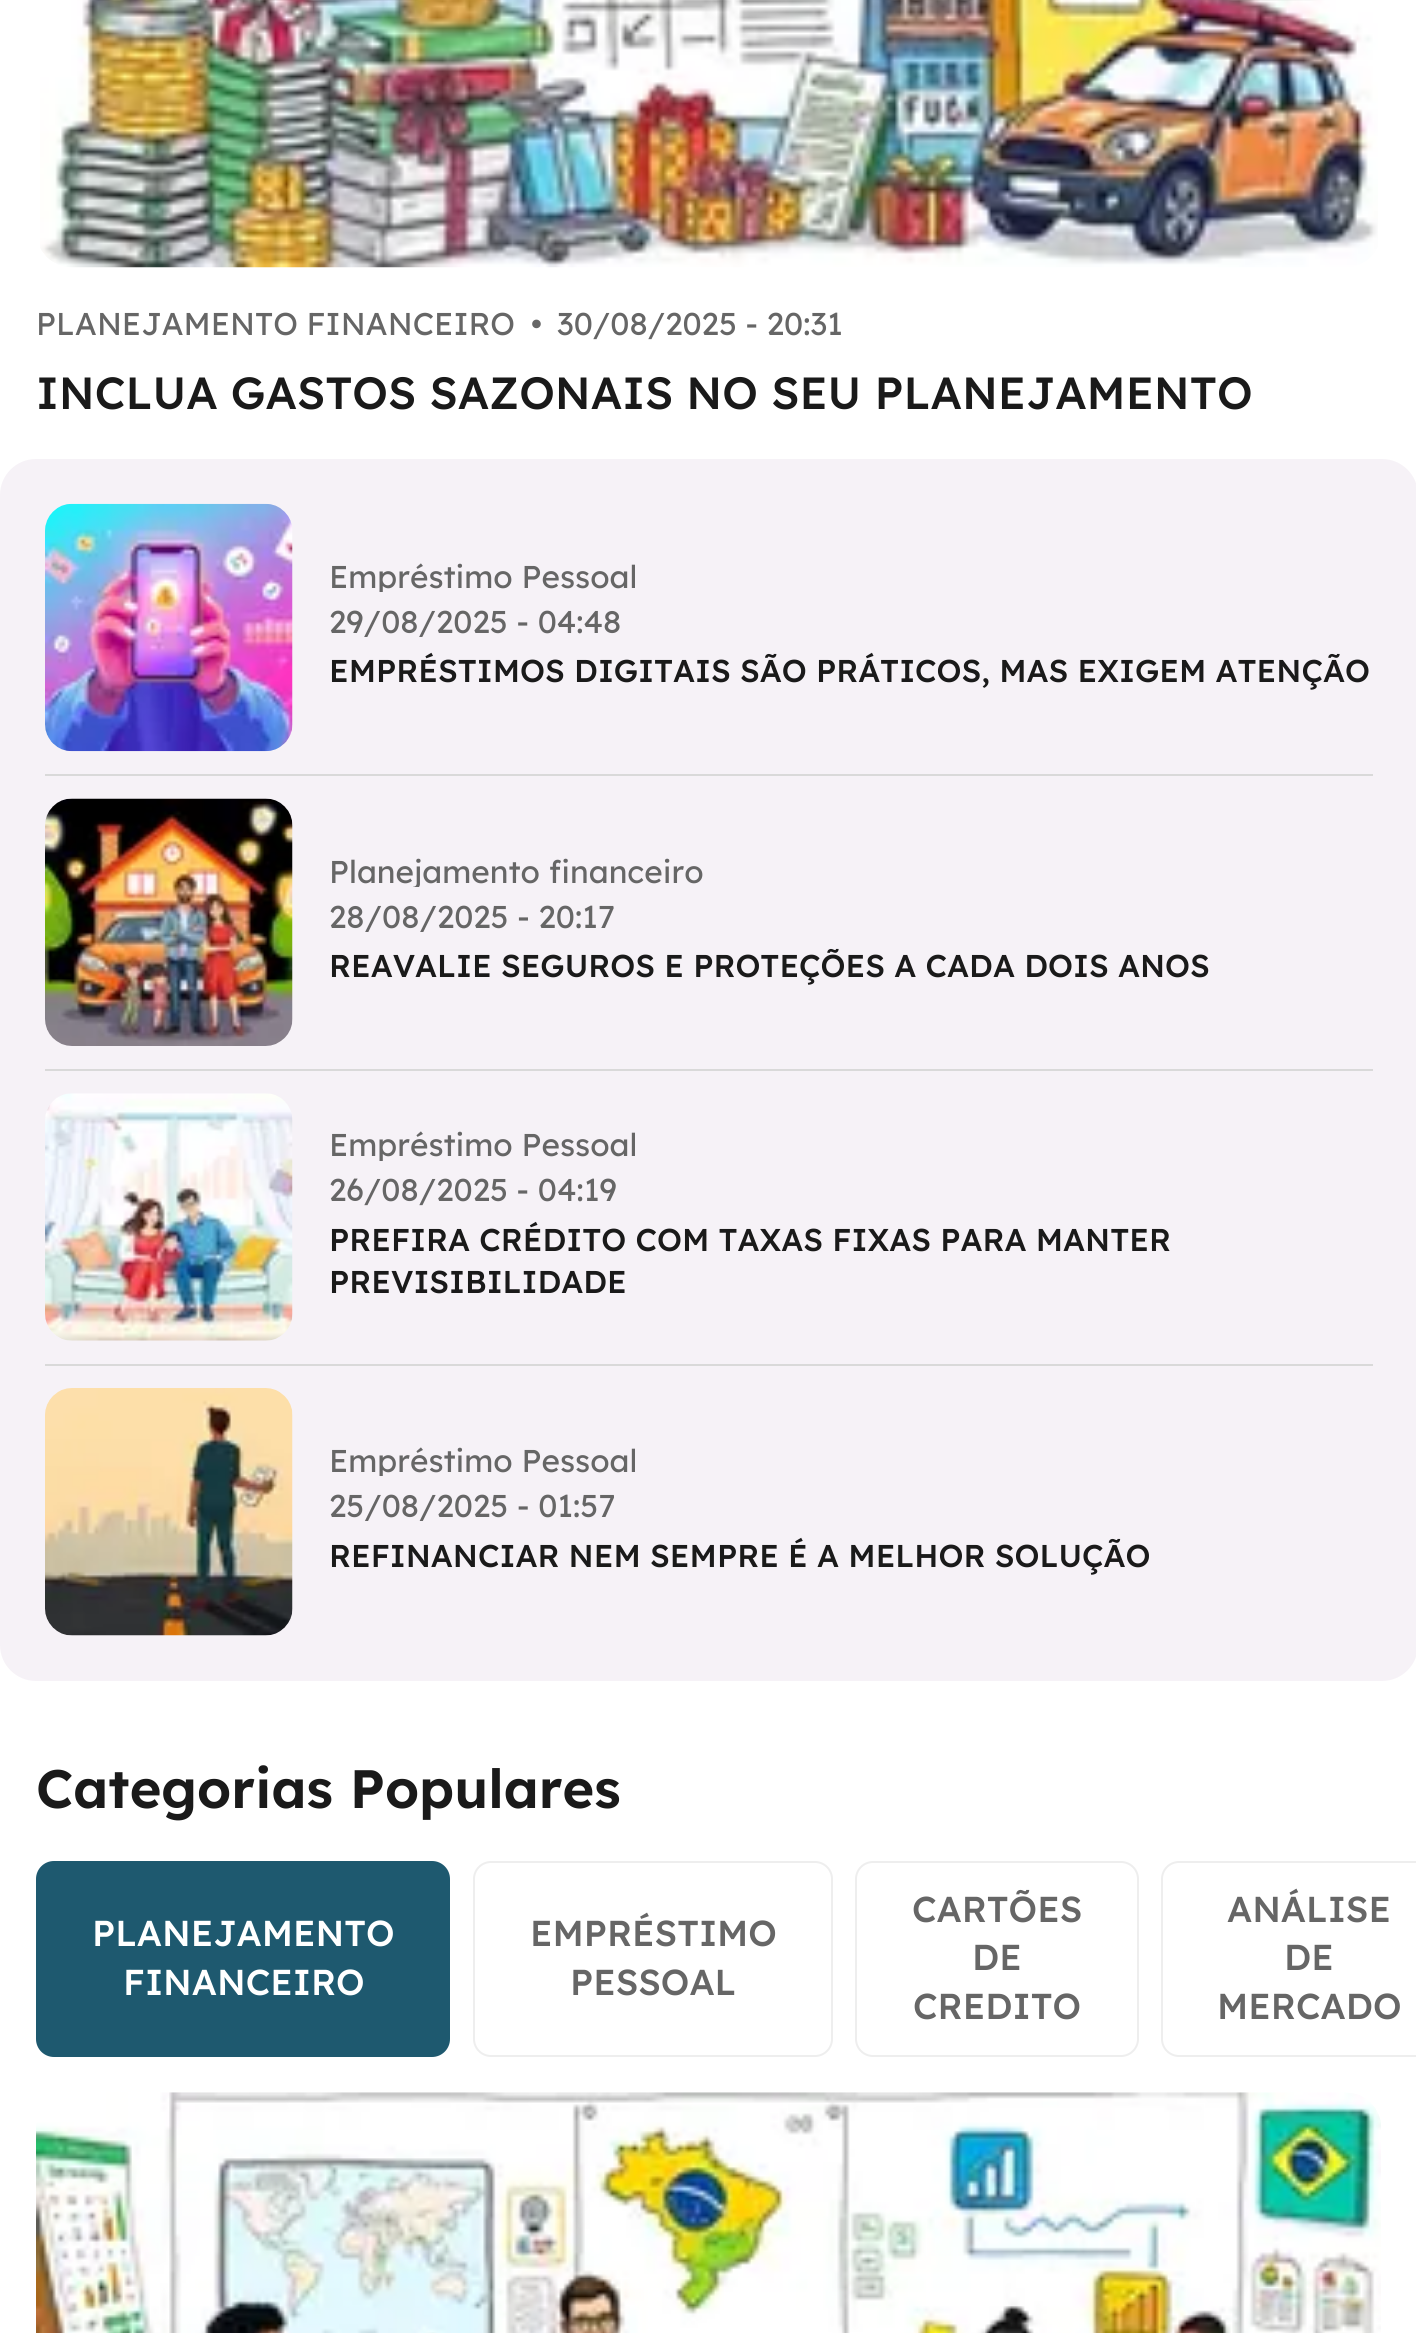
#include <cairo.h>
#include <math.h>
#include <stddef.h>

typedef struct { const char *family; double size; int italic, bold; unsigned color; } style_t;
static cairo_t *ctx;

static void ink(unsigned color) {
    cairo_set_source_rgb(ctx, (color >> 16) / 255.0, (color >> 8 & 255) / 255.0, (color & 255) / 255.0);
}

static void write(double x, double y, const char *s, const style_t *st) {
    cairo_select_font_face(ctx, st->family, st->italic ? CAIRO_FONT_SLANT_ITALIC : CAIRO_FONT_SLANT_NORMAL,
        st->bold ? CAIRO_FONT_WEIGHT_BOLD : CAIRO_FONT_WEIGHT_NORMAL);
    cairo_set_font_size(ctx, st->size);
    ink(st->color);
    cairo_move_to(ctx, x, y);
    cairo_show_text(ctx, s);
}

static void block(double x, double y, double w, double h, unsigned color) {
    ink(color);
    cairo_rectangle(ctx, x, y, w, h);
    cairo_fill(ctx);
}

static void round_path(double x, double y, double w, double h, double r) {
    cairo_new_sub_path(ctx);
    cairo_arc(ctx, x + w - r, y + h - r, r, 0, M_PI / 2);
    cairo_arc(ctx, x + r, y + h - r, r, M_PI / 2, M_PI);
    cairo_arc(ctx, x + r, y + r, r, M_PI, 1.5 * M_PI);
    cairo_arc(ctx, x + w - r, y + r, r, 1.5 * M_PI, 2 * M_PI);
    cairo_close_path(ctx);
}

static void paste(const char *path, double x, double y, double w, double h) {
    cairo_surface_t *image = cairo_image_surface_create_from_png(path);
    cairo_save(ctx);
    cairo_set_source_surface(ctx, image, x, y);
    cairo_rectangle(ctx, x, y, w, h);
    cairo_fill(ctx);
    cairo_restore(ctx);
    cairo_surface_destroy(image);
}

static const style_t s1 = {"Lexend", 31.5, 0, 0, 0x666666};
static const style_t s2 = {"Lexend Medium", 45, 0, 0, 0x1a1a1a};
static const style_t s3 = {"Lexend Medium", 31.5, 0, 0, 0x1a1a1a};
static const style_t s4 = {"Lexend SemiBold", 54, 0, 0, 0x1a1a1a};
static const style_t s5 = {"Lexend Medium", 36, 0, 0, 0xffffff};
static const style_t s6 = {"Lexend Medium", 36, 0, 0, 0x666666};

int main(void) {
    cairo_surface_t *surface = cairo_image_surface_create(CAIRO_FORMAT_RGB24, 1416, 2333);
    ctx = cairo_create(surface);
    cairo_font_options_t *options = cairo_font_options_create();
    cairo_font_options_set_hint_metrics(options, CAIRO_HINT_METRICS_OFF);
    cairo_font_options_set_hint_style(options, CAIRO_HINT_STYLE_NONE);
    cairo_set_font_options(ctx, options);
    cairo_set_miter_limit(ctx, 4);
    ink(0xffffff);
    cairo_paint(ctx);
    paste("pic1.png", 40, 0, 1338, 268);
    write(36, 335, "PLANEJAMENTO FINANCEIRO", &s1);
    write(531, 335, "•", &s1);
    write(557, 335, "30/08/2025 - 20:31", &s1);
    write(36, 409, "INCLUA GASTOS SAZONAIS NO SEU PLANEJAMENTO", &s2);
    ink(0xf6f2f7);
    round_path(0, 459, 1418, 1222, 36);
    cairo_fill(ctx);
    paste("pic2.png", 45, 503, 248, 249);
    cairo_save(ctx);
    cairo_rectangle(ctx, 329, 560, 1041, 32);
    cairo_clip(ctx);
    write(329, 588, "Empréstimo Pessoal", &s1);
    cairo_restore(ctx);
    cairo_save(ctx);
    cairo_rectangle(ctx, 329, 605, 1041, 32);
    cairo_clip(ctx);
    write(329, 633, "29/08/2025 - 04:48", &s1);
    cairo_restore(ctx);
    write(329, 682, "EMPRÉSTIMOS DIGITAIS SÃO PRÁTICOS, MAS EXIGEM ATENÇÃO", &s3);
    block(45, 774, 1328, 2, 0xd9d9d9);
    paste("pic3.png", 45, 798, 248, 248);
    cairo_save(ctx);
    cairo_rectangle(ctx, 329, 855, 879, 32);
    cairo_clip(ctx);
    write(329, 883, "Planejamento financeiro", &s1);
    cairo_restore(ctx);
    cairo_save(ctx);
    cairo_rectangle(ctx, 329, 900, 879, 32);
    cairo_clip(ctx);
    write(329, 928, "28/08/2025 - 20:17", &s1);
    cairo_restore(ctx);
    write(329, 977, "REAVALIE SEGUROS E PROTEÇÕES A CADA DOIS ANOS", &s3);
    block(45, 1069, 1328, 2, 0xd9d9d9);
    paste("pic4.png", 45, 1093, 248, 248);
    cairo_save(ctx);
    cairo_rectangle(ctx, 329, 1130, 1044, 31);
    cairo_clip(ctx);
    write(329, 1156, "Empréstimo Pessoal", &s1);
    cairo_restore(ctx);
    write(329, 1201, "26/08/2025 - 04:19", &s1);
    write(329, 1251, "PREFIRA CRÉDITO COM TAXAS FIXAS PARA MANTER", &s3);
    write(329, 1293, "PREVISIBILIDADE", &s3);
    block(45, 1364, 1328, 2, 0xd9d9d9);
    paste("pic5.png", 45, 1388, 248, 248);
    cairo_save(ctx);
    cairo_rectangle(ctx, 329, 1445, 821, 31);
    cairo_clip(ctx);
    write(329, 1472, "Empréstimo Pessoal", &s1);
    cairo_restore(ctx);
    cairo_save(ctx);
    cairo_rectangle(ctx, 329, 1490, 821, 31);
    cairo_clip(ctx);
    write(329, 1517, "25/08/2025 - 01:57", &s1);
    cairo_restore(ctx);
    write(329, 1567, "REFINANCIAR NEM SEMPRE É A MELHOR SOLUÇÃO", &s3);
    write(36, 1808, "Categorias Populares", &s4);
    ink(0x1e596f);
    round_path(37, 1862, 412, 194, 17);
    cairo_fill_preserve(ctx);
    cairo_stroke(ctx);
    write(92, 1946, "PLANEJAMENTO", &s5);
    write(123, 1995, "FINANCEIRO", &s5);
    round_path(474, 1862, 358, 194, 17);
    ink(0xeeeeee);
    cairo_stroke(ctx);
    write(530, 1946, "EMPRÉSTIMO", &s6);
    write(570, 1995, "PESSOAL", &s6);
    round_path(856, 1862, 282, 194, 17);
    ink(0xeeeeee);
    cairo_stroke(ctx);
    write(912, 1922, "CARTÕES", &s6);
    write(972, 1970, "DE", &s6);
    write(913, 2019, "CREDITO", &s6);
    round_path(1162, 1862, 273, 194, 17);
    ink(0xeeeeee);
    cairo_stroke(ctx);
    write(1227, 1922, "ANÁLISE", &s6);
    write(1284, 1970, "DE", &s6);
    write(1217, 2019, "MERCADO", &s6);
    paste("pic6.png", 36, 2092, 1345, 241);
    cairo_surface_write_to_png(surface, "screenshot.png");
    cairo_font_options_destroy(options);
    cairo_destroy(ctx);
    cairo_surface_destroy(surface);
    return 0;
}
